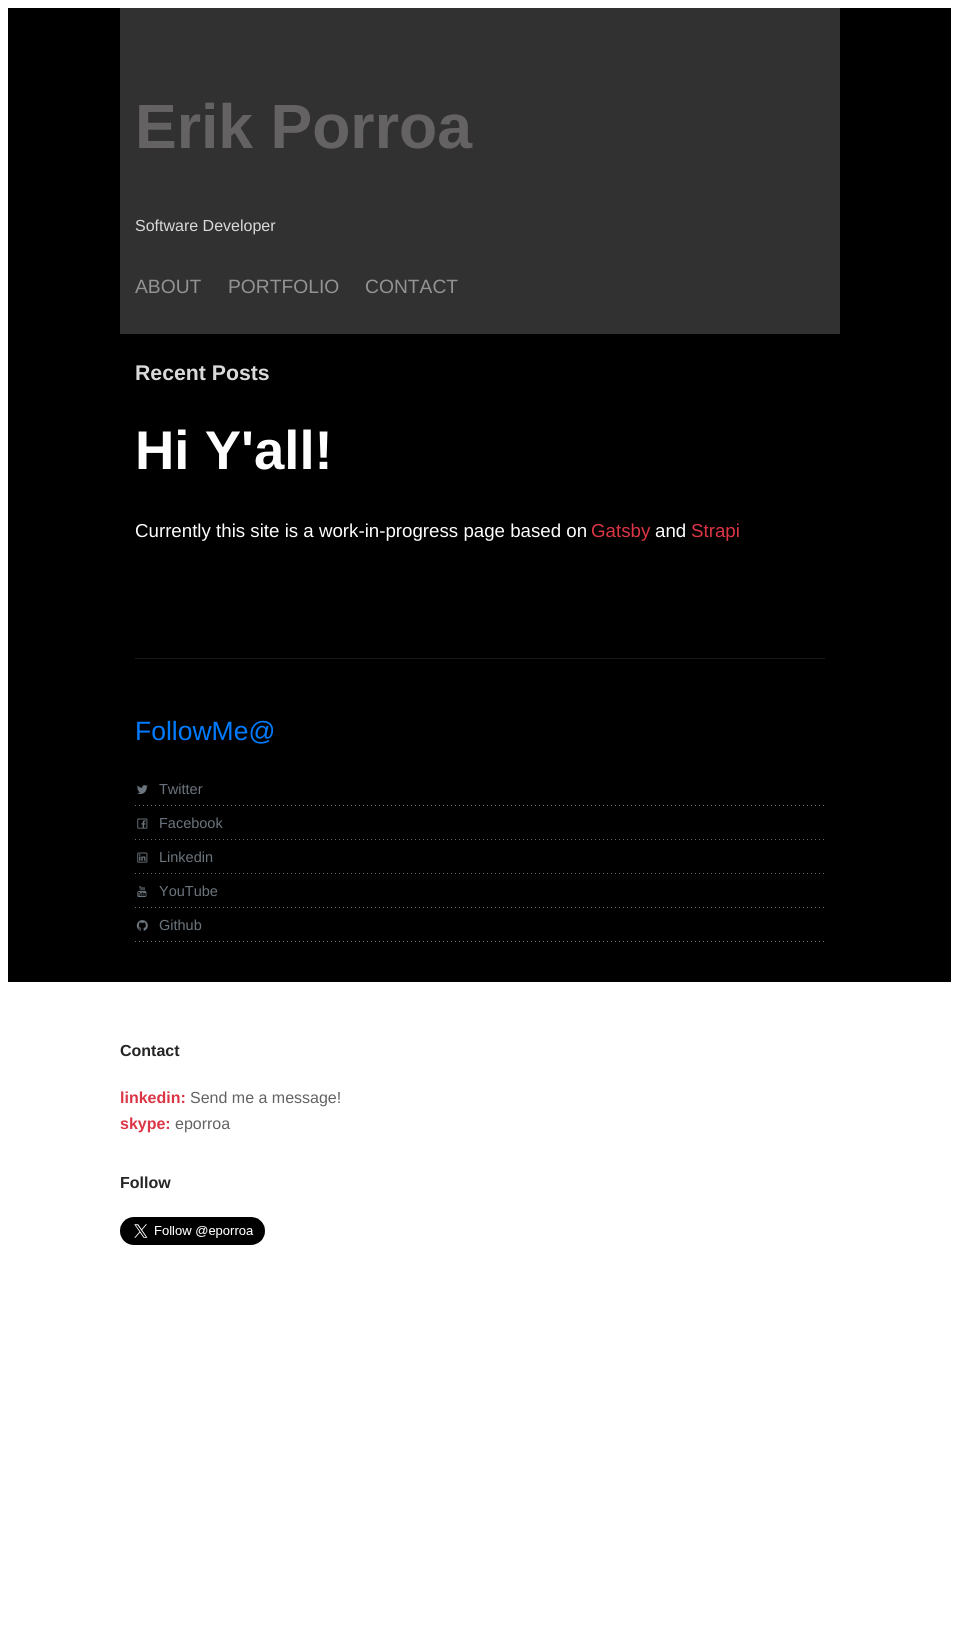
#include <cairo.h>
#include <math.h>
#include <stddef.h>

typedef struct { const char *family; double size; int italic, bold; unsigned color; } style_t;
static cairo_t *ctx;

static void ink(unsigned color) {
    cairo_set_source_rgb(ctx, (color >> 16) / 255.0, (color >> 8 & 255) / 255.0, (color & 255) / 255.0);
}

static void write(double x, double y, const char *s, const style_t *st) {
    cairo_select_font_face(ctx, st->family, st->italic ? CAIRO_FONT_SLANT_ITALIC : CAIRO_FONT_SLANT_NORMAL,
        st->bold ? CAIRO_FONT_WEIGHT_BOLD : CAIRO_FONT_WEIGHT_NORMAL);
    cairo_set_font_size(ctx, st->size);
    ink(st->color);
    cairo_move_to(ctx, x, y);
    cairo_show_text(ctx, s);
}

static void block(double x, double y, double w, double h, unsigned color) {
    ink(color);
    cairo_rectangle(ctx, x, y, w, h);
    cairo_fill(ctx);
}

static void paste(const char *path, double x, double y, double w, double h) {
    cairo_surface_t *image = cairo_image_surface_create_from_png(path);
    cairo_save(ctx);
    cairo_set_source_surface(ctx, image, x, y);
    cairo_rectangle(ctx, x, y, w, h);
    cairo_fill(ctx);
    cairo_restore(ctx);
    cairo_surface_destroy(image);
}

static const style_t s1 = {"Liberation Sans", 62.5, 0, 1, 0x646263};
static const style_t s2 = {"Liberation Sans", 16, 0, 0, 0xd9d9d9};
static const style_t s3 = {"Liberation Sans", 19.25, 0, 0, 0x939393};
static const style_t s4 = {"Liberation Sans", 21.25, 0, 1, 0xd9d9d9};
static const style_t s5 = {"Liberation Sans", 54.5, 0, 1, 0xfefefe};
static const style_t s6 = {"Liberation Sans", 18.7, 0, 0, 0xfefefe};
static const style_t s7 = {"Liberation Sans", 18.7, 0, 0, 0xdc3545};
static const style_t s8 = {"Liberation Sans", 26.5, 0, 0, 0x007bff};
static const style_t s9 = {"Liberation Sans", 14.5, 0, 0, 0x6c757d};
static const style_t s10 = {"Liberation Sans", 16, 0, 1, 0x252525};
static const style_t s11 = {"Liberation Sans", 16, 0, 1, 0xdc3545};
static const style_t s12 = {"Liberation Sans", 16, 0, 0, 0x646263};

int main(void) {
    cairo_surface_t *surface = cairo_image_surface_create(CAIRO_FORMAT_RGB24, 959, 1634);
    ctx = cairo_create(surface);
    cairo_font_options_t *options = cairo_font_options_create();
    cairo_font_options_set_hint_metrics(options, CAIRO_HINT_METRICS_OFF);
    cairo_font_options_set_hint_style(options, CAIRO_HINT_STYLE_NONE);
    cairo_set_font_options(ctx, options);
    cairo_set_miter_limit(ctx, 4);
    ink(0xffffff);
    cairo_paint(ctx);
    block(8, 8, 943, 974, 0x000000);
    block(120, 8, 720, 326, 0x323132);
    write(135, 148, "Erik Porroa", &s1);
    write(135, 231, "Software Developer", &s2);
    write(135, 293, "ABOUT", &s3);
    write(228, 293, "PORTFOLIO", &s3);
    write(365, 293, "CONTACT", &s3);
    write(135, 380, "Recent Posts", &s4);
    block(135, 658, 690, 1, 0x1a1a1a);
    write(135, 469, "Hi Y'all!", &s5);
    write(135, 537, "Currently this site is a work-in-progress page based on", &s6);
    write(591, 537, "Gatsby", &s7);
    write(655, 537, "and", &s6);
    write(691, 537, "Strapi", &s7);
    write(135, 740, "FollowMe@", &s8);
    paste("pic1.png", 135, 805, 689, 1);
    paste("pic2.png", 137, 785, 11, 9);
    write(159, 794, "Twitter", &s9);
    paste("pic1.png", 135, 839, 689, 1);
    paste("pic3.png", 137, 818, 11, 11);
    write(159, 828, "Facebook", &s9);
    paste("pic1.png", 135, 873, 689, 1);
    paste("pic4.png", 137, 852, 11, 11);
    write(159, 862, "Linkedin", &s9);
    paste("pic1.png", 135, 907, 689, 1);
    paste("pic5.png", 137, 886, 10, 12);
    write(159, 896, "YouTube", &s9);
    paste("pic1.png", 135, 941, 689, 1);
    paste("pic6.png", 136, 920, 12, 11);
    write(159, 930, "Github", &s9);
    write(120, 1056, "Contact", &s10);
    write(120, 1103, "linkedin:", &s11);
    write(190, 1103, "Send me a message!", &s12);
    write(120, 1129, "skype:", &s11);
    write(175, 1129, "eporroa", &s12);
    write(120, 1188, "Follow", &s10);
    paste("pic7.png", 120, 1217, 145, 28);
    cairo_surface_write_to_png(surface, "screenshot.png");
    cairo_font_options_destroy(options);
    cairo_destroy(ctx);
    cairo_surface_destroy(surface);
    return 0;
}
